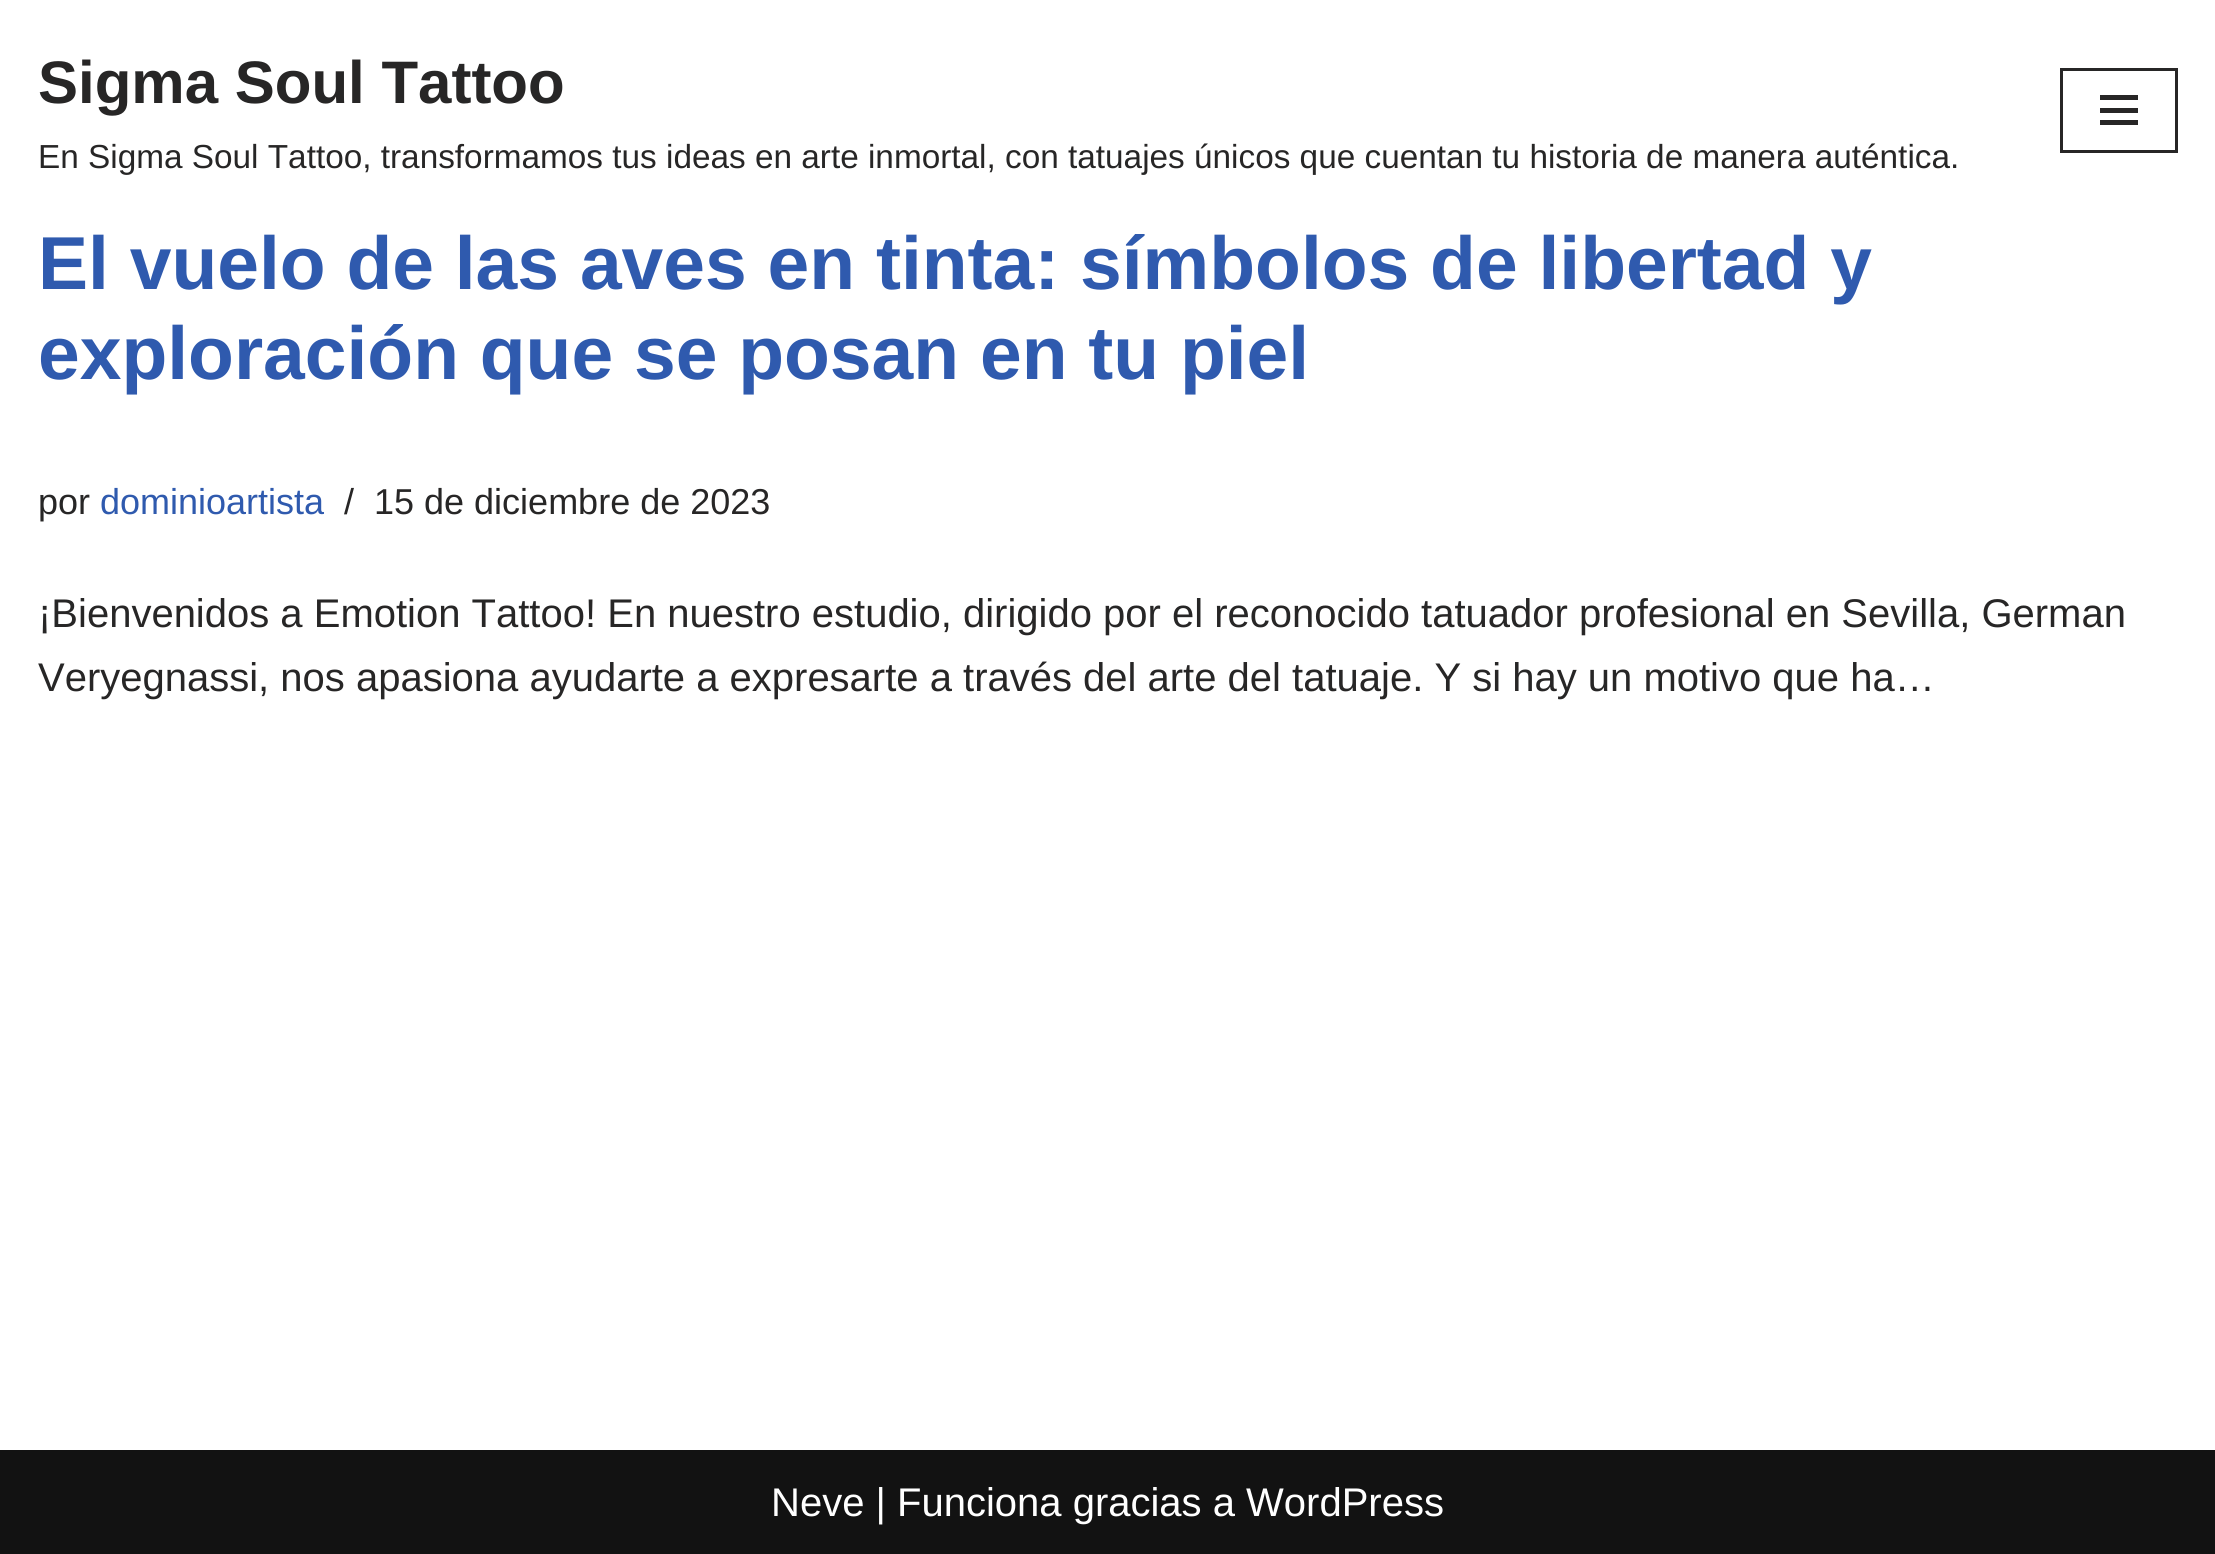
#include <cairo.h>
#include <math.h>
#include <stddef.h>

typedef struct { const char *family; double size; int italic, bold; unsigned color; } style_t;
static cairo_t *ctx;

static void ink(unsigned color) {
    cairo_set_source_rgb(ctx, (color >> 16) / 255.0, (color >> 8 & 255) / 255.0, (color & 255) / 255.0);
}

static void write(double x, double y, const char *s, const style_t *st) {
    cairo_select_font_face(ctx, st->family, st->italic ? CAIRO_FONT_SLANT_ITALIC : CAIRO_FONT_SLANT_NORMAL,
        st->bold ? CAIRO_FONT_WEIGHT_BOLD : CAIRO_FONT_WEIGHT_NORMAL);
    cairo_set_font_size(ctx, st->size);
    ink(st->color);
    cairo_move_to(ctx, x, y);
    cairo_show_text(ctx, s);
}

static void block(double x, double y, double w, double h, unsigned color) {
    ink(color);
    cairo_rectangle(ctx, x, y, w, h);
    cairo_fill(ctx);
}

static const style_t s1 = {"Liberation Sans", 60, 0, 1, 0x272626};
static const style_t s2 = {"Liberation Sans", 33.33, 0, 0, 0x272626};
static const style_t s3 = {"Liberation Sans", 75, 0, 1, 0x2f5aae};
static const style_t s4 = {"Liberation Sans", 36, 0, 0, 0x272626};
static const style_t s5 = {"Liberation Sans", 36, 0, 0, 0x2f5aae};
static const style_t s6 = {"Liberation Sans", 40, 0, 0, 0x272626};
static const style_t s7 = {"Liberation Sans", 40, 0, 0, 0xffffff};

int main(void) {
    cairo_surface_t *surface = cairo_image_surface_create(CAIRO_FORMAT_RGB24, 2215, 1554);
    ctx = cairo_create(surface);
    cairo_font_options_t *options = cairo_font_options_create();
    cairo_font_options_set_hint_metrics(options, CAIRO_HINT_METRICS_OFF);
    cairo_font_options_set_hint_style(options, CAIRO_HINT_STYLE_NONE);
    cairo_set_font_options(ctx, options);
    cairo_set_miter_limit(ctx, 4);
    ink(0xffffff);
    cairo_paint(ctx);
    write(38, 103, "Sigma Soul Tattoo", &s1);
    write(38, 168, "En Sigma Soul Tattoo, transformamos tus ideas en arte inmortal, con tatuajes únicos que cuentan tu historia de manera auténtica.", &s2);
    cairo_rectangle(ctx, 2061.5, 69.5, 115, 82);
    cairo_set_line_width(ctx, 3);
    cairo_stroke(ctx);
    block(2100, 95, 38, 5, 0x272626);
    block(2100, 108, 38, 5, 0x272626);
    block(2100, 120, 38, 5, 0x272626);
    write(38, 289, "El vuelo de las aves en tinta: símbolos de libertad y", &s3);
    write(38, 379, "exploración que se posan en tu piel", &s3);
    write(38, 514, "por", &s4);
    write(100, 514, "dominioartista", &s5);
    write(344, 514, "/", &s4);
    write(374, 514, "15 de diciembre de 2023", &s4);
    write(38, 627, "¡Bienvenidos a Emotion Tattoo! En nuestro estudio, dirigido por el reconocido tatuador profesional en Sevilla, German", &s6);
    write(38, 691, "Veryegnassi, nos apasiona ayudarte a expresarte a través del arte del tatuaje. Y si hay un motivo que ha…", &s6);
    block(0, 1450, 2215, 104, 0x121212);
    write(771, 1516, "Neve | Funciona gracias a WordPress", &s7);
    cairo_surface_write_to_png(surface, "screenshot.png");
    cairo_font_options_destroy(options);
    cairo_destroy(ctx);
    cairo_surface_destroy(surface);
    return 0;
}
